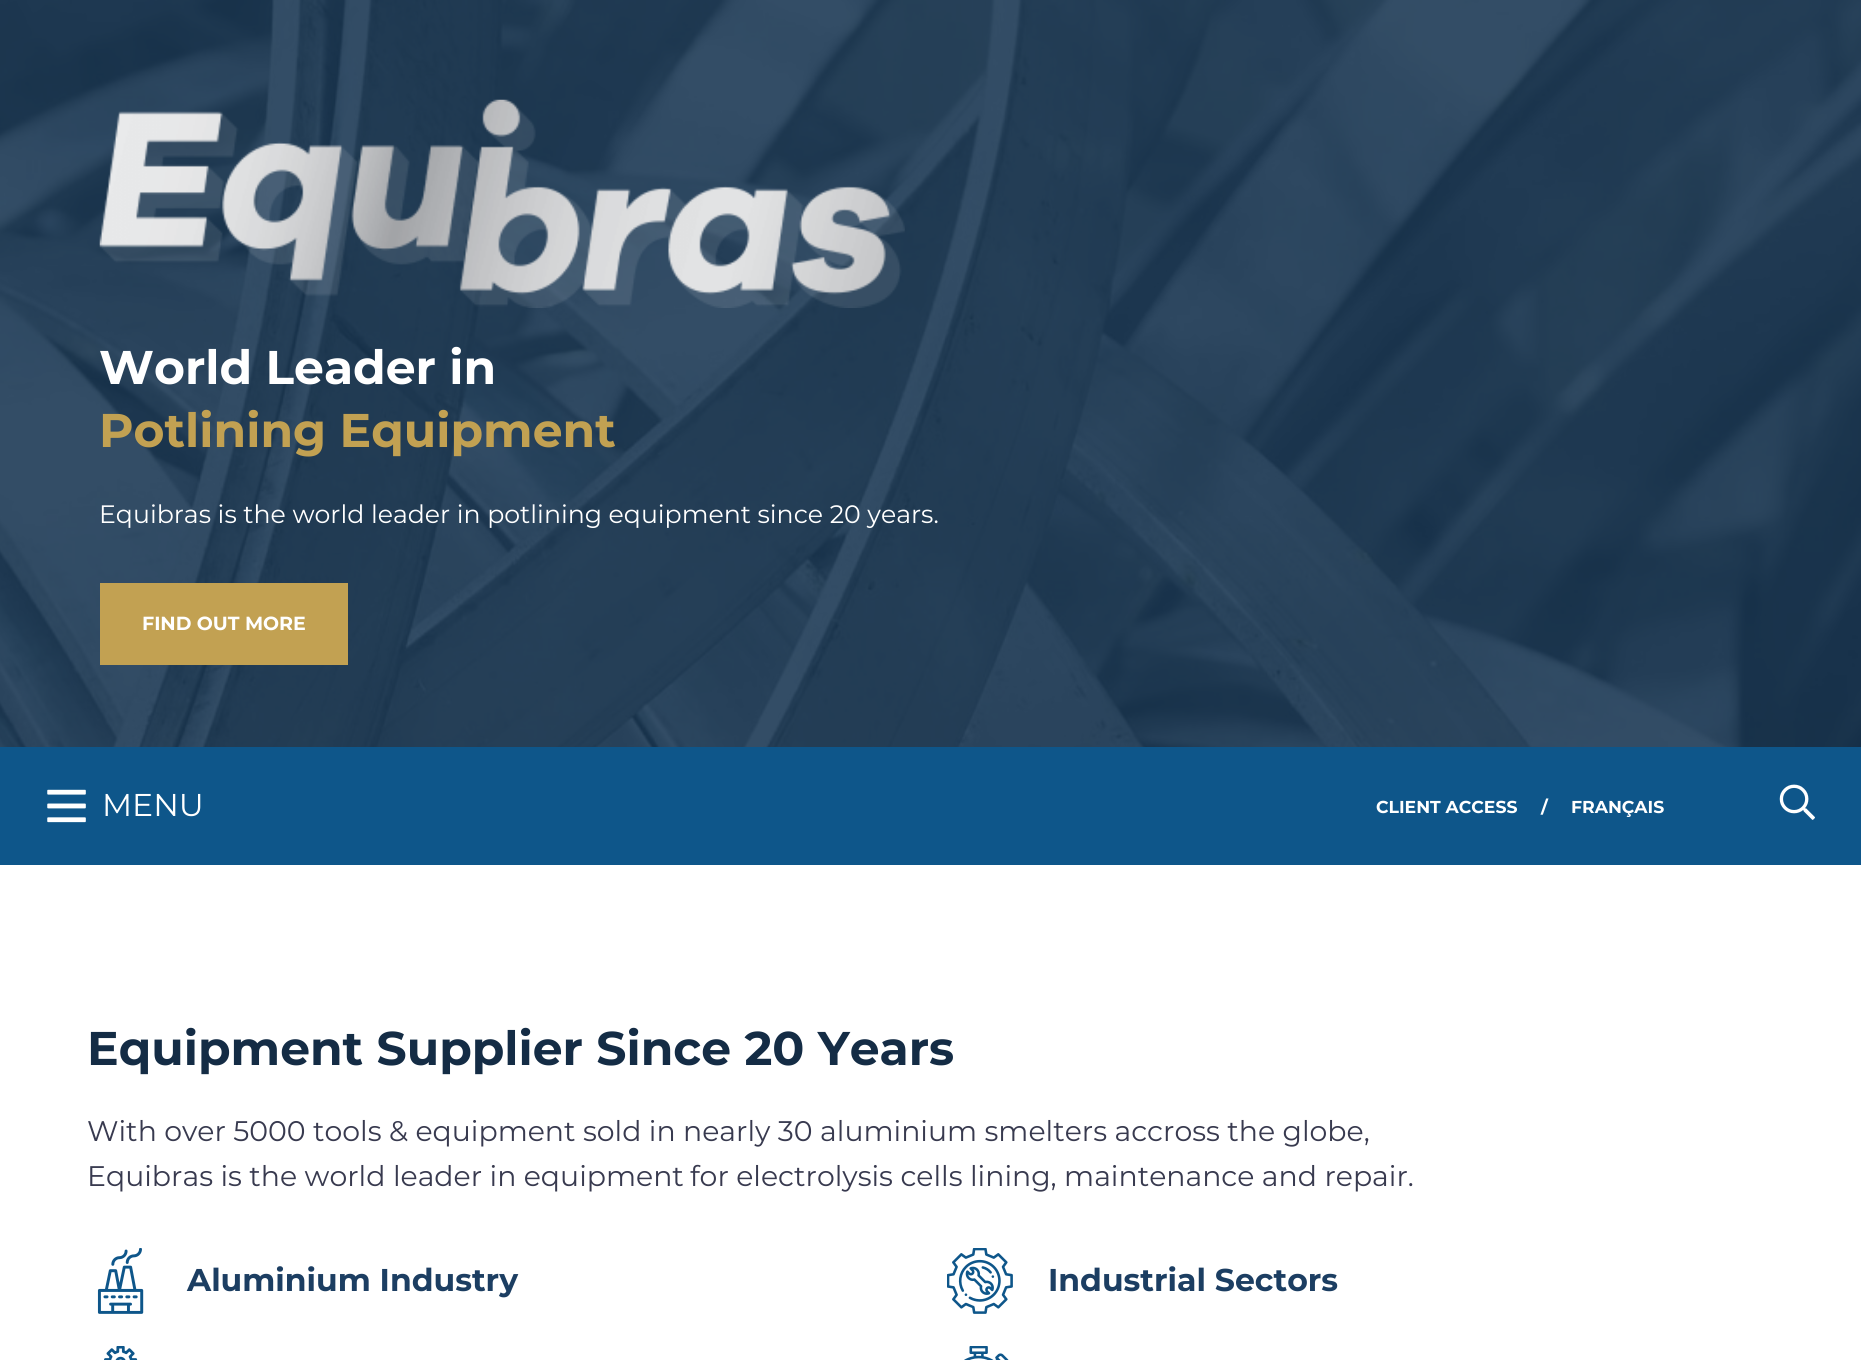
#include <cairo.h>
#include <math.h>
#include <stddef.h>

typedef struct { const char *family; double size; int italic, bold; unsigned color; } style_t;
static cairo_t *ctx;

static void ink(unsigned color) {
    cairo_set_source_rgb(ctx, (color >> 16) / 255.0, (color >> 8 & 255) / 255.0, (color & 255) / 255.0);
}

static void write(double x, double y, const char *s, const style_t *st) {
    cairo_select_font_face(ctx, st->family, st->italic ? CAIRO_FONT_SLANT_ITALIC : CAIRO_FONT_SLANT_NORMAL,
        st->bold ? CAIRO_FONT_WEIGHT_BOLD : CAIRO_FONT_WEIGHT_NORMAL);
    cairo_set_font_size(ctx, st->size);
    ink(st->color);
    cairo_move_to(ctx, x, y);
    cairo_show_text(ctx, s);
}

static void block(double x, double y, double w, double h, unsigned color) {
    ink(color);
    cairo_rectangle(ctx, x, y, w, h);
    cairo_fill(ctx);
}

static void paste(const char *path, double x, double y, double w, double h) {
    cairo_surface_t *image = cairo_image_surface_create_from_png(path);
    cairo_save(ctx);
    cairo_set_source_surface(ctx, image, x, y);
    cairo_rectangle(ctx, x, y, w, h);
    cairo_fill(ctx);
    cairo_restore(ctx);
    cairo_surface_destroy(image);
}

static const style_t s1 = {"Montserrat", 47.25, 0, 1, 0xffffff};
static const style_t s2 = {"Montserrat", 47.25, 0, 1, 0xc2a152};
static const style_t s3 = {"Montserrat", 25.2, 0, 0, 0xffffff};
static const style_t s4 = {"Montserrat", 19, 0, 1, 0xffffff};
static const style_t s5 = {"Montserrat", 31.5, 0, 0, 0xffffff};
static const style_t s6 = {"Montserrat", 17.25, 0, 1, 0xffffff};
static const style_t s7 = {"Montserrat", 47.25, 0, 1, 0x142c45};
static const style_t s8 = {"Montserrat", 28.35, 0, 0, 0x383a4f};
static const style_t s9 = {"Montserrat", 31.5, 0, 1, 0x1c3e62};

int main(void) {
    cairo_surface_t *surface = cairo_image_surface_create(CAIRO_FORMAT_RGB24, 1861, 1360);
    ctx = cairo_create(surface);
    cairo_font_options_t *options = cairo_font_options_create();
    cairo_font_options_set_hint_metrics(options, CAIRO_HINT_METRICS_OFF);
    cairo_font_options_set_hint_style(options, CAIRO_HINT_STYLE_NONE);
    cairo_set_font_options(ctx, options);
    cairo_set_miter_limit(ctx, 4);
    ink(0xffffff);
    cairo_paint(ctx);
    block(0, 0, 1861, 747, 0x173451);
    paste("pic1.png", 0, 0, 1861, 747);
    paste("pic2.png", 99, 99, 806, 209);
    write(99, 384, "World Leader in", &s1);
    write(99, 447, "Potlining Equipment", &s2);
    write(99, 523, "Equibras is the world leader in potlining equipment since 20 years.", &s3);
    block(100, 583, 248, 82, 0xc2a152);
    write(142, 630, "FIND OUT MORE", &s4);
    block(0, 747, 1861, 118, 0x0e568a);
    paste("pic3.png", 47, 789, 39, 34);
    write(102, 816, "MENU", &s5);
    write(1376, 813, "CLIENT ACCESS", &s6);
    write(1541, 813, "/", &s6);
    write(1571, 813, "FRANÇAIS", &s6);
    paste("pic4.png", 1779, 784, 36, 36);
    write(87, 1065, "Equipment Supplier Since 20 Years", &s7);
    write(87, 1141, "With over 5000 tools & equipment sold in nearly 30 aluminium smelters accross the globe,", &s8);
    write(87, 1186, "Equibras is the world leader in equipment", &s8);
    write(690, 1186, "for electrolysis cells lining, maintenance and repair.", &s8);
    paste("pic5.png", 97, 1248, 47, 66);
    write(187, 1291, "Aluminium Industry", &s9);
    paste("pic6.png", 947, 1248, 66, 66);
    write(1048, 1291, "Industrial Sectors", &s9);
    paste("pic7.png", 104, 1346, 34, 14);
    paste("pic8.png", 964, 1346, 45, 14);
    cairo_surface_write_to_png(surface, "screenshot.png");
    cairo_font_options_destroy(options);
    cairo_destroy(ctx);
    cairo_surface_destroy(surface);
    return 0;
}
